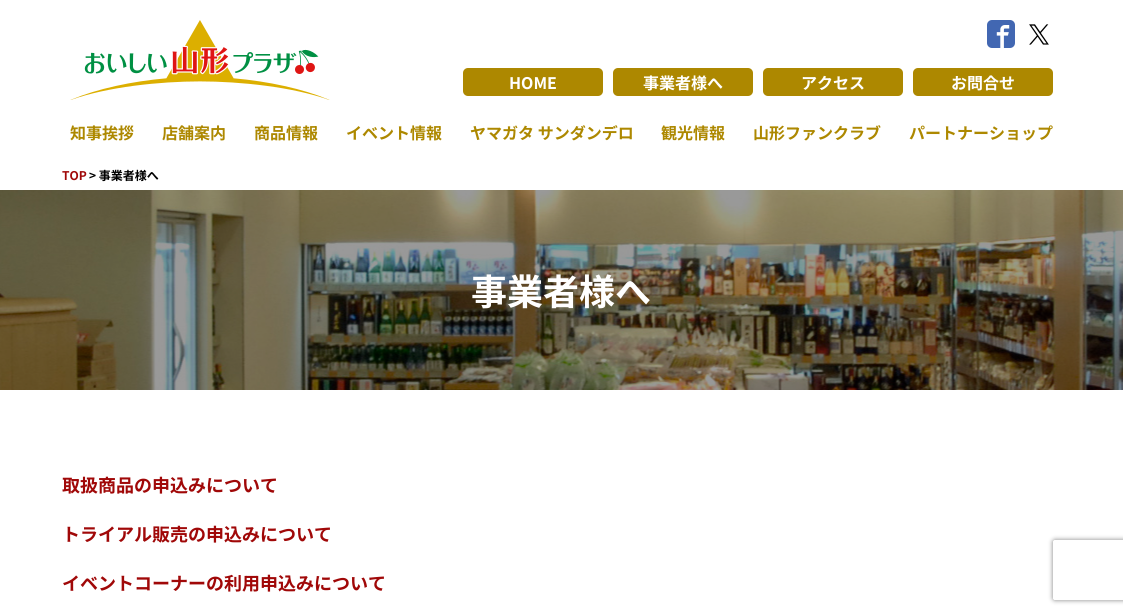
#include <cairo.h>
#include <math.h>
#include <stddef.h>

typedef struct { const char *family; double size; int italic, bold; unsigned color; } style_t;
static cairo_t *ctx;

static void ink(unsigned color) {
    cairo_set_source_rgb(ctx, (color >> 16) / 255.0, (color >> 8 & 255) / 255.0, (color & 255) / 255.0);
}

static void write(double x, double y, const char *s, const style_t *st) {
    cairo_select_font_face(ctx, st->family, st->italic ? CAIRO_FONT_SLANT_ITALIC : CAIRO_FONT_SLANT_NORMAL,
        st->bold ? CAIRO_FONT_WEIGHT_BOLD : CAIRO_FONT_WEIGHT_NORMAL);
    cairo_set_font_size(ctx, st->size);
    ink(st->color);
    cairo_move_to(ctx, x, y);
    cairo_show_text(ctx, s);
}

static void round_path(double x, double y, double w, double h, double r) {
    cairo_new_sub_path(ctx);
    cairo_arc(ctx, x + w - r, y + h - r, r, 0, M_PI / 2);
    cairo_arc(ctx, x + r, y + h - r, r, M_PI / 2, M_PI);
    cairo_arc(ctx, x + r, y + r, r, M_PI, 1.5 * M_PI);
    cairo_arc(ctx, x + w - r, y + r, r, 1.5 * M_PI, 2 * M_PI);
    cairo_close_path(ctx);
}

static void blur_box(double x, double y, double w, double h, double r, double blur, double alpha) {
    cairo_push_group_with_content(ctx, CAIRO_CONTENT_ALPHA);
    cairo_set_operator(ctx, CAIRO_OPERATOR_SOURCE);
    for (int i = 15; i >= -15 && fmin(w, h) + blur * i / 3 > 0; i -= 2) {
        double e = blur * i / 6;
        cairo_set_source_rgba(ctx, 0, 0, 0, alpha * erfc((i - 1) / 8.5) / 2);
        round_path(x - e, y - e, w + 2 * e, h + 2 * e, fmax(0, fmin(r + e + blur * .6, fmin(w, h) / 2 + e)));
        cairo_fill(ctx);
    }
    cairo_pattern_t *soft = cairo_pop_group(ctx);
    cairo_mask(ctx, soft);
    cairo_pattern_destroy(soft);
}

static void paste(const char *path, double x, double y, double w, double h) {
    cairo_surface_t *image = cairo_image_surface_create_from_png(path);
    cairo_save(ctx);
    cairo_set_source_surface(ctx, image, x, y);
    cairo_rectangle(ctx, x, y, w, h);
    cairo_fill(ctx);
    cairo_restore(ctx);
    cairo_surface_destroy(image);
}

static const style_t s1 = {"Noto Sans JP Thin", 16, 0, 0, 0xffffff};
static const style_t s2 = {"Noto Sans JP Thin", 16, 0, 0, 0xad8800};
static const style_t s3 = {"Noto Sans JP Thin", 12, 0, 0, 0xa00808};
static const style_t s4 = {"Noto Sans JP Thin", 12, 0, 0, 0x000000};
static const style_t s5 = {"Noto Sans JP Thin", 36, 0, 0, 0xffffff};
static const style_t s6 = {"Noto Sans JP Thin", 18, 0, 0, 0xa00808};

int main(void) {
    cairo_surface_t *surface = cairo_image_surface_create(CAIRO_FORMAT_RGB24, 1123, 614);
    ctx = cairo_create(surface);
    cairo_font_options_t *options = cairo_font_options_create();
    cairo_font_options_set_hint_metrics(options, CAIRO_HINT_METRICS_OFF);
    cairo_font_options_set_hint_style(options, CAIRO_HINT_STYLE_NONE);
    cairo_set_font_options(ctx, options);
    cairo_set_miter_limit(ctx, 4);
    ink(0xffffff);
    cairo_paint(ctx);
    paste("pic1.png", 70, 20, 260, 80);
    paste("pic2.png", 987, 20, 28, 28);
    paste("pic3.png", 1029, 24, 20, 21);
    ink(0xad8800);
    round_path(463, 68, 140, 28, 5);
    cairo_fill(ctx);
    write(509, 89, "HOME", &s1);
    ink(0xad8800);
    round_path(613, 68, 140, 28, 5);
    cairo_fill(ctx);
    write(643, 89, "事業者様へ", &s1);
    ink(0xad8800);
    round_path(763, 68, 140, 28, 5);
    cairo_fill(ctx);
    write(801, 89, "アクセス", &s1);
    ink(0xad8800);
    round_path(913, 68, 140, 28, 5);
    cairo_fill(ctx);
    write(951, 89, "お問合せ", &s1);
    write(70, 139, "知事挨拶", &s2);
    write(162, 139, "店舗案内", &s2);
    write(254, 139, "商品情報", &s2);
    write(346, 139, "イベント情報", &s2);
    write(470, 139, "ヤマガタ サンダンデロ", &s2);
    write(661, 139, "観光情報", &s2);
    write(753, 139, "山形ファンクラブ", &s2);
    write(909, 139, "パートナーショップ", &s2);
    write(62, 180, "TOP", &s3);
    write(89, 180, "> 事業者様へ", &s4);
    paste("pic4.png", 0, 190, 1123, 200);
    write(471, 305, "事業者様へ", &s5);
    write(62, 492, "取扱商品の申込みについて", &s6);
    write(62, 541, "トライアル販売の申込みについて", &s6);
    write(62, 590, "イベントコーナーの利用申込みについて", &s6);
    cairo_save(ctx);
    cairo_set_fill_rule(ctx, CAIRO_FILL_RULE_EVEN_ODD);
    cairo_new_path(ctx);
    cairo_move_to(ctx, 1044, 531);
    cairo_line_to(ctx, 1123, 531);
    cairo_line_to(ctx, 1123, 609);
    cairo_line_to(ctx, 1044, 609);
    cairo_close_path(ctx);
    cairo_move_to(ctx, 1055, 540);
    cairo_line_to(ctx, 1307, 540);
    cairo_curve_to(ctx, 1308, 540, 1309, 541, 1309, 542);
    cairo_line_to(ctx, 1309, 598);
    cairo_curve_to(ctx, 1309, 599, 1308, 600, 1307, 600);
    cairo_line_to(ctx, 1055, 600);
    cairo_curve_to(ctx, 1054, 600, 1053, 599, 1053, 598);
    cairo_line_to(ctx, 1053, 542);
    cairo_curve_to(ctx, 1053, 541, 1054, 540, 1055, 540);
    cairo_close_path(ctx);
    cairo_clip(ctx);
    ink(0x808080);
    blur_box(1053, 540, 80, 60, 2, 2.5, 1);
    cairo_restore(ctx);
    cairo_surface_write_to_png(surface, "screenshot.png");
    cairo_font_options_destroy(options);
    cairo_destroy(ctx);
    cairo_surface_destroy(surface);
    return 0;
}
